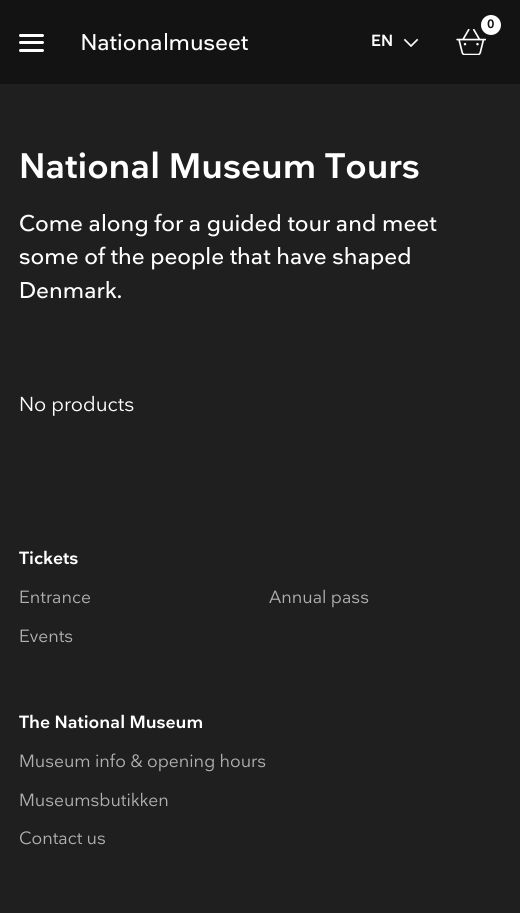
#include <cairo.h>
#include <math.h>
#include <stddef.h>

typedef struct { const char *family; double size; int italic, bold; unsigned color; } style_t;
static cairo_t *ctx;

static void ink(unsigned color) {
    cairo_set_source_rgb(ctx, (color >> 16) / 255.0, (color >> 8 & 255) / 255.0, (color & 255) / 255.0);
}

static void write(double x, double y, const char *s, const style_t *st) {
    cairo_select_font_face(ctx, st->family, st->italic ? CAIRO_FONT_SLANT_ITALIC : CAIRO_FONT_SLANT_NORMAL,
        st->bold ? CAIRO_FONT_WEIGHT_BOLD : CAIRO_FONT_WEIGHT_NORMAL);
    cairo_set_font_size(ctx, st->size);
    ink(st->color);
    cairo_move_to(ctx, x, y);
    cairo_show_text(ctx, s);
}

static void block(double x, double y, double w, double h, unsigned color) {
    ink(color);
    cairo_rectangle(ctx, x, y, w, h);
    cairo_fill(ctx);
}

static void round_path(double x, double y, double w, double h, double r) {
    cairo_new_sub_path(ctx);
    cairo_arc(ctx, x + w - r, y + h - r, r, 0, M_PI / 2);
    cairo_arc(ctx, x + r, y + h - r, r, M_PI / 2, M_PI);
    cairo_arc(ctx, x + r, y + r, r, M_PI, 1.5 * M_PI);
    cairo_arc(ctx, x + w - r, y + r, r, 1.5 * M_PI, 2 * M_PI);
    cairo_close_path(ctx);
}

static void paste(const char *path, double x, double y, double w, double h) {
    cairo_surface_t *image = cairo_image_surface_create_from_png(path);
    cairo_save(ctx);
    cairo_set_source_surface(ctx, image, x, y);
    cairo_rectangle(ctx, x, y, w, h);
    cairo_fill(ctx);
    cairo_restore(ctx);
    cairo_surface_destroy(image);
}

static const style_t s1 = {"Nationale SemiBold", 12, 0, 0, 0x111111};
static const style_t s2 = {"Nationale SemiBold", 16, 0, 0, 0xffffff};
static const style_t s3 = {"Nationale SemiBold", 35, 0, 0, 0xffffff};
static const style_t s4 = {"Nationale Medium", 22.5, 0, 0, 0xffffff};
static const style_t s5 = {"Nationale", 20, 0, 0, 0xffffff};
static const style_t s6 = {"Nationale SemiBold", 17.5, 0, 0, 0xffffff};
static const style_t s7 = {"Nationale", 17.5, 0, 0, 0xb1b1b1};

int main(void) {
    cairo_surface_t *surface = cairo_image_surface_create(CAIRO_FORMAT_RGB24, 520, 913);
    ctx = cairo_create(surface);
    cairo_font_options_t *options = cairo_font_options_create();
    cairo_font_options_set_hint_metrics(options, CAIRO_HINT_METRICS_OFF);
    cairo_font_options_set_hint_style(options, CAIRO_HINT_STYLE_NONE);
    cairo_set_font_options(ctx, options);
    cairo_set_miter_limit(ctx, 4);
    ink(0x1f1f1f);
    cairo_paint(ctx);
    block(0, 0, 520, 84, 0x131313);
    ink(0xffffff);
    round_path(19, 34, 25, 3, 1.5);
    cairo_fill(ctx);
    round_path(19, 41, 25, 3, 1.5);
    cairo_fill(ctx);
    round_path(19, 49, 25, 3, 1.5);
    cairo_fill(ctx);
    paste("pic1.png", 82, 33, 166, 18);
    paste("pic2.png", 456, 29, 30, 26);
    cairo_arc(ctx, 491, 25, 10, 0, 2 * M_PI);
    cairo_fill(ctx);
    write(487, 28, "0", &s1);
    write(371, 46, "EN", &s2);
    paste("pic3.png", 403, 38, 16, 9);
    write(19, 178, "National Museum Tours", &s3);
    write(19, 231, "Come along for a guided tour and meet", &s4);
    write(19, 264, "some of the people that have shaped", &s4);
    write(19, 298, "Denmark.", &s4);
    write(19, 411, "No products", &s5);
    write(19, 564, "Tickets", &s6);
    write(19, 603, "Entrance", &s7);
    write(269, 603, "Annual pass", &s7);
    write(19, 642, "Events", &s7);
    write(19, 728, "The National Museum", &s6);
    write(19, 767, "Museum info & opening hours", &s7);
    write(19, 806, "Museumsbutikken", &s7);
    write(19, 844, "Contact us", &s7);
    cairo_surface_write_to_png(surface, "screenshot.png");
    cairo_font_options_destroy(options);
    cairo_destroy(ctx);
    cairo_surface_destroy(surface);
    return 0;
}
